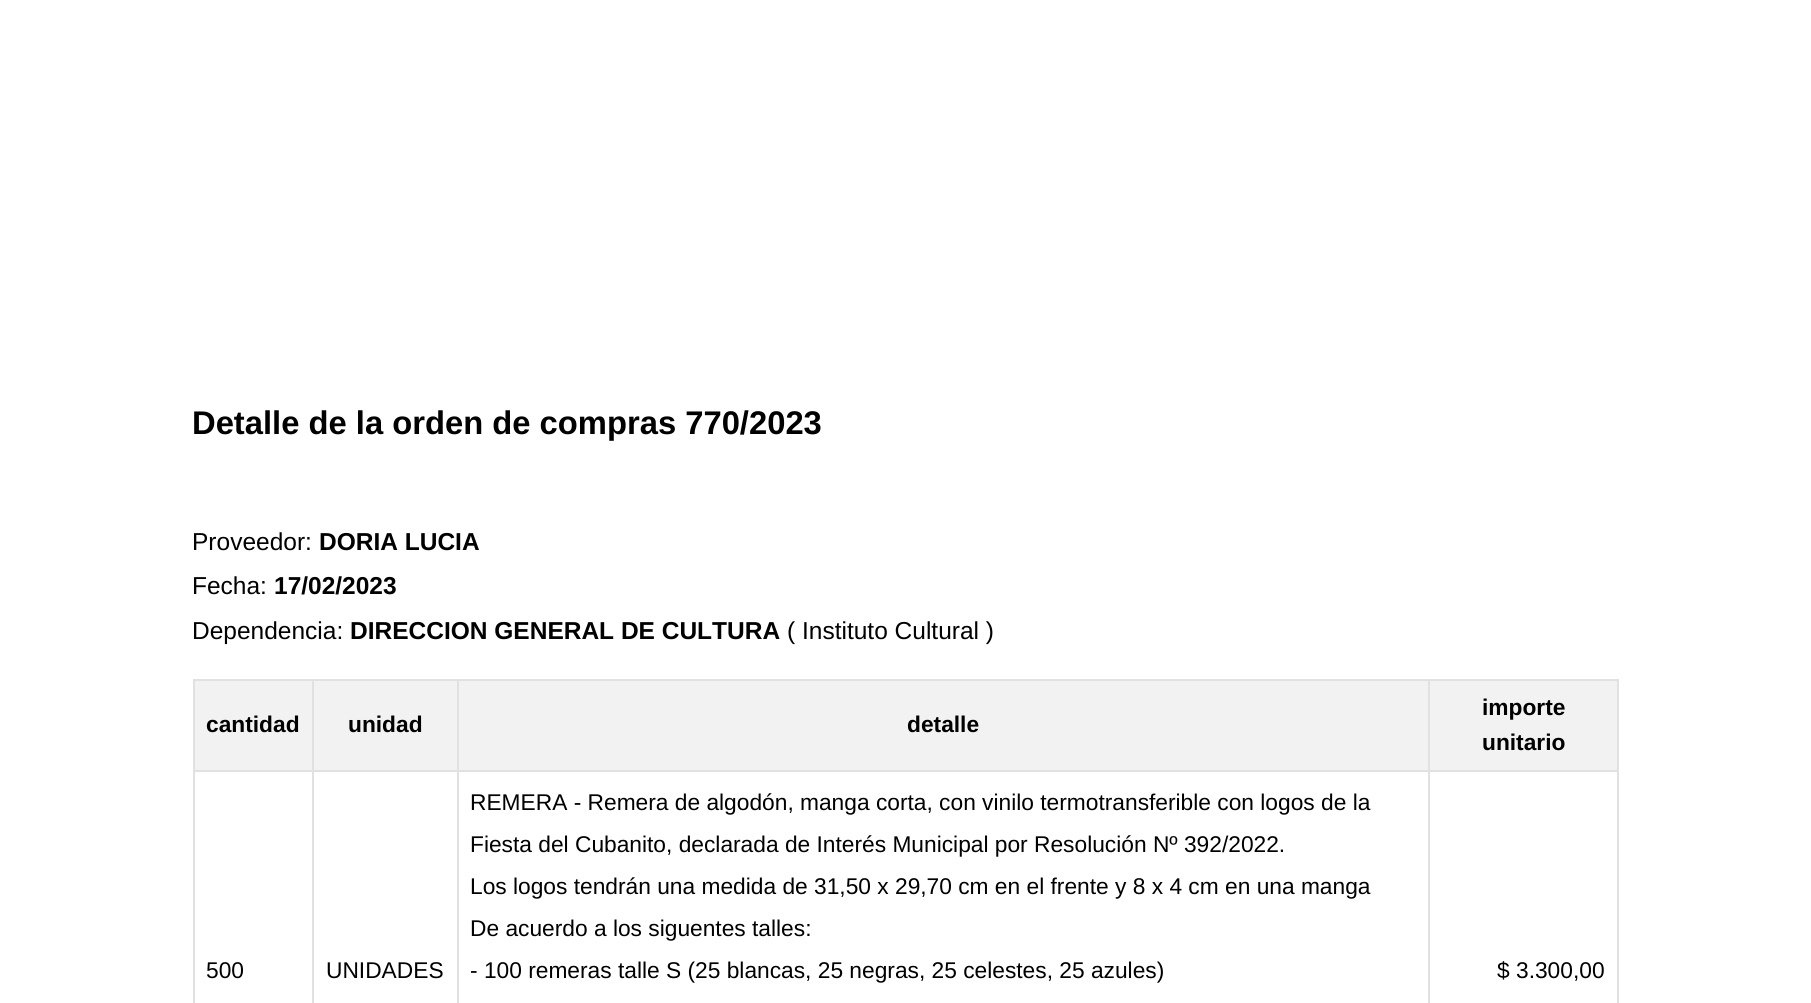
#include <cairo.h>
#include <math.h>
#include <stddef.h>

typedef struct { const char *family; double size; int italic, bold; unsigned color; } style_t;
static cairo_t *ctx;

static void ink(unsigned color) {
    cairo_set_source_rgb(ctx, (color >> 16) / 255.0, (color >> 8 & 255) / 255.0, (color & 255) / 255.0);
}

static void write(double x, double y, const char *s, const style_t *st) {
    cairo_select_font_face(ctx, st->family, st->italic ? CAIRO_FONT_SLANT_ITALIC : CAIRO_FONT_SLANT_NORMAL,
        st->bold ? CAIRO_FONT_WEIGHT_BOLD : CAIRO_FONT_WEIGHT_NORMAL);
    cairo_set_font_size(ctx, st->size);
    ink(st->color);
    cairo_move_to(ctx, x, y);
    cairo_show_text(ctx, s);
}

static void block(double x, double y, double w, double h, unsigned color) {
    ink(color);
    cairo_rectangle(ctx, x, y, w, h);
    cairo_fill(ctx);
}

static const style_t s1 = {"Liberation Sans", 32.75, 0, 1, 0x000000};
static const style_t s2 = {"Liberation Sans", 24.5, 0, 0, 0x000000};
static const style_t s3 = {"Liberation Sans", 24.5, 0, 1, 0x000000};
static const style_t s4 = {"Liberation Sans", 22.75, 0, 1, 0x000000};
static const style_t s5 = {"Liberation Sans", 22.75, 0, 0, 0x000000};

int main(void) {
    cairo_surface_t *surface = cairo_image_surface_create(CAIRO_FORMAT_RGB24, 1811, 1003);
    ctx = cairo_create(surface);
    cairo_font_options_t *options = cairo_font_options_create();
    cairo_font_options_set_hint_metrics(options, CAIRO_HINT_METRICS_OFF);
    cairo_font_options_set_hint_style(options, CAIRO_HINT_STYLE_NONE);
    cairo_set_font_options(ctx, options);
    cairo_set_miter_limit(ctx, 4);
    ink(0xffffff);
    cairo_paint(ctx);
    write(192, 434, "Detalle de la orden de compras 770/2023", &s1);
    write(192, 550, "Proveedor:", &s2);
    write(319, 550, "DORIA LUCIA", &s3);
    write(192, 594, "Fecha:", &s2);
    write(274, 594, "17/02/2023", &s3);
    write(192, 639, "Dependencia:", &s2);
    write(350, 639, "DIRECCION GENERAL DE CULTURA", &s3);
    write(787, 639, "( Instituto Cultural )", &s2);
    block(195, 681, 117, 89, 0xf2f2f2);
    block(1428, 679, 191, 2, 0xe1e1e1);
    block(1428, 770, 191, 2, 0xe1e1e1);
    block(1428, 770, 2, 233, 0xe1e1e1);
    block(457, 770, 973, 2, 0xe1e1e1);
    block(1428, 679, 2, 93, 0xe1e1e1);
    block(457, 679, 973, 2, 0xe1e1e1);
    block(457, 770, 2, 233, 0xe1e1e1);
    block(312, 770, 147, 2, 0xe1e1e1);
    block(457, 679, 2, 93, 0xe1e1e1);
    block(312, 679, 147, 2, 0xe1e1e1);
    block(312, 770, 2, 233, 0xe1e1e1);
    block(193, 770, 120, 2, 0xe1e1e1);
    block(312, 679, 2, 93, 0xe1e1e1);
    block(193, 679, 120, 2, 0xe1e1e1);
    block(193, 770, 2, 233, 0xe1e1e1);
    block(193, 679, 2, 93, 0xe1e1e1);
    write(206, 732, "cantidad", &s4);
    block(314, 681, 143, 89, 0xf2f2f2);
    write(348, 732, "unidad", &s4);
    block(459, 681, 969, 89, 0xf2f2f2);
    write(907, 732, "detalle", &s4);
    block(1430, 681, 187, 89, 0xf2f2f2);
    block(1617, 770, 2, 233, 0xe1e1e1);
    block(1617, 679, 2, 93, 0xe1e1e1);
    write(1482, 715, "importe", &s4);
    write(1482, 750, "unitario", &s4);
    write(206, 978, "500", &s5);
    write(326, 978, "UNIDADES", &s5);
    write(470, 810, "REMERA - Remera de algodón, manga corta, con vinilo termotransferible con logos de la", &s5);
    write(470, 852, "Fiesta del Cubanito, declarada de Interés Municipal por Resolución Nº 392/2022.", &s5);
    write(470, 894, "Los logos tendrán una medida de 31,50 x 29,70 cm en el frente y 8 x 4 cm en una manga", &s5);
    write(470, 936, "De acuerdo a los siguentes talles:", &s5);
    write(470, 978, "- 100 remeras talle S (25 blancas, 25 negras, 25 celestes, 25 azules)", &s5);
    write(1497, 978, "$ 3.300,00", &s5);
    cairo_surface_write_to_png(surface, "screenshot.png");
    cairo_font_options_destroy(options);
    cairo_destroy(ctx);
    cairo_surface_destroy(surface);
    return 0;
}
